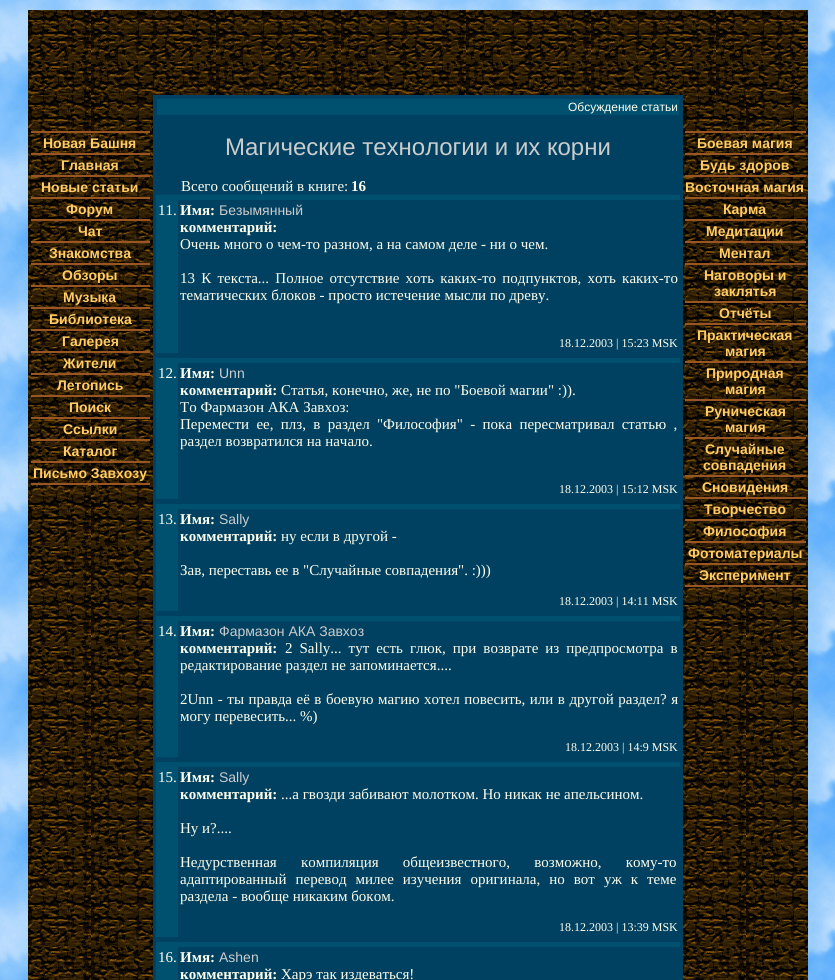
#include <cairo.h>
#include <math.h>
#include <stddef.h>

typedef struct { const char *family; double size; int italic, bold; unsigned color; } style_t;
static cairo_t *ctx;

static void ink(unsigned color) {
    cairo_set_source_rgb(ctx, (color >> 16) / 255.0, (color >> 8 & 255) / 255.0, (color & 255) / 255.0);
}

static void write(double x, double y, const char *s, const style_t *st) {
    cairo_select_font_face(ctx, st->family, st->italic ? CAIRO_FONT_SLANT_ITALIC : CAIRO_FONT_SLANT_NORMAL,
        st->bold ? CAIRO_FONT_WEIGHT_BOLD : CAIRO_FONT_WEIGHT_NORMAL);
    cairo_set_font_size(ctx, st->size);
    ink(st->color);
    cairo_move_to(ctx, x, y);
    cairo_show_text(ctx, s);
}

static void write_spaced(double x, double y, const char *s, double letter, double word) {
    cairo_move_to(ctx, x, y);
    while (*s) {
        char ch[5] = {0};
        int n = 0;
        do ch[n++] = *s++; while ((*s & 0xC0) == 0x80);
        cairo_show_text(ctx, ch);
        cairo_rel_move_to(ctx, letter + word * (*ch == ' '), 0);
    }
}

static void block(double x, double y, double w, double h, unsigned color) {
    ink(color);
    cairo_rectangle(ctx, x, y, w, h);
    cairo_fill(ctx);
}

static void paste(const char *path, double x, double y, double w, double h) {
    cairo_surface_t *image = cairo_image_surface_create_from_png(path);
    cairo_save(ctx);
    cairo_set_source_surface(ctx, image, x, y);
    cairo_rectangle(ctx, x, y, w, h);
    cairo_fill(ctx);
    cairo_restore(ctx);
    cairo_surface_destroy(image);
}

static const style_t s1 = {"Liberation Sans", 14, 0, 1, 0xffcc66};
static const style_t s2 = {"Liberation Sans", 12, 0, 0, 0xffffee};
static const style_t s3 = {"Liberation Sans", 24, 0, 0, 0xcccccc};
static const style_t s4 = {"Liberation Serif", 15, 0, 0, 0xffffee};
static const style_t s5 = {"Liberation Serif", 15, 0, 1, 0xffffee};
static const style_t s6 = {"Liberation Sans", 14, 0, 0, 0xcccccc};
static const style_t s7 = {"Liberation Serif", 12, 0, 0, 0xffffee};

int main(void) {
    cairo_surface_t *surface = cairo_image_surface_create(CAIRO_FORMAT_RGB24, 835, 980);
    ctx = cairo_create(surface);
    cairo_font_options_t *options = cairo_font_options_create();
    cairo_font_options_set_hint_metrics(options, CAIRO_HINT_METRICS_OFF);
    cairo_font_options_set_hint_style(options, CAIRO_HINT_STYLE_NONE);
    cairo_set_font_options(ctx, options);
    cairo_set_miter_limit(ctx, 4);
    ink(0xffffff);
    cairo_paint(ctx);
    paste("pic1.png", 0, 0, 835, 980);
    paste("pic2.png", 28, 10, 780, 85);
    paste("pic3.png", 28, 95, 125, 885);
    block(31, 131, 119, 2, 0x995522);
    write(43, 148, "Новая Башня", &s1);
    block(31, 153, 119, 2, 0x995522);
    write(61, 170, "Главная", &s1);
    block(31, 175, 119, 2, 0x995522);
    write(41, 192, "Новые статьи", &s1);
    block(31, 197, 119, 2, 0x995522);
    write(66, 214, "Форум", &s1);
    block(31, 219, 119, 2, 0x995522);
    write(78, 236, "Чат", &s1);
    block(31, 241, 119, 2, 0x995522);
    write(49, 258, "Знакомства", &s1);
    block(31, 263, 119, 2, 0x995522);
    write(62, 280, "Обзоры", &s1);
    block(31, 285, 119, 2, 0x995522);
    write(63, 302, "Музыка", &s1);
    block(31, 307, 119, 2, 0x995522);
    write(49, 324, "Библиотека", &s1);
    block(31, 329, 119, 2, 0x995522);
    write(62, 346, "Галерея", &s1);
    block(31, 351, 119, 2, 0x995522);
    write(63, 368, "Жители", &s1);
    block(31, 373, 119, 2, 0x995522);
    write(57, 390, "Летопись", &s1);
    block(31, 395, 119, 2, 0x995522);
    write(69, 412, "Поиск", &s1);
    block(31, 417, 119, 2, 0x995522);
    write(63, 434, "Ссылки", &s1);
    block(31, 439, 119, 2, 0x995522);
    write(63, 456, "Каталог", &s1);
    block(31, 461, 119, 2, 0x995522);
    write(33, 478, "Письмо Завхозу", &s1);
    block(31, 483, 119, 2, 0x995522);
    block(153, 95, 530, 885, 0x004060);
    block(157, 99, 522, 16, 0x005070);
    write(568, 111, "Обсуждение статьи", &s2);
    write(225, 155, "Магические технологии и их корни", &s3);
    write(181, 191, "Всего сообщений в книге:", &s4);
    write(351, 191, "16", &s5);
    block(156, 195, 524, 5, 0x005070);
    block(156, 200, 22, 153, 0x005070);
    write(158, 215, "11.", &s4);
    write(180, 215, "Имя:", &s5);
    write(219, 215, "Безымянный", &s6);
    write(180, 232, "комментарий:", &s5);
    write(180, 249, "Очень много о чем-то разном, а на самом деле - ни о чем.", &s4);
    write_spaced(180, 283, "13 К текста... Полное отсутствие хоть каких-то подпунктов, хоть каких-то", 0, 2.5);
    write(180, 300, "тематических блоков - просто истечение мысли по древу.", &s4);
    write(559, 347, "18.12.2003 | 15:23 MSK", &s7);
    block(156, 358, 524, 5, 0x005070);
    block(156, 363, 22, 136, 0x005070);
    write(158, 378, "12.", &s4);
    write(180, 378, "Имя:", &s5);
    write(219, 378, "Unn", &s6);
    write(180, 395, "комментарий:", &s5);
    write(281, 395, "Статья, конечно, же, не по \"Боевой магии\" :)).", &s4);
    write(180, 412, "To Фармазон АКА Завхоз:", &s4);
    write_spaced(180, 429, "Перемести ее, плз, в раздел \"Философия\" - пока пересматривал статью ,", 0, 3.6);
    write(180, 446, "раздел возвратился на начало.", &s4);
    write(559, 493, "18.12.2003 | 15:12 MSK", &s7);
    block(156, 504, 524, 5, 0x005070);
    block(156, 509, 22, 102, 0x005070);
    write(158, 524, "13.", &s4);
    write(180, 524, "Имя:", &s5);
    write(219, 524, "Sally", &s6);
    write(180, 541, "комментарий:", &s5);
    write(281, 541, "ну если в другой -", &s4);
    write(180, 575, "Зав, переставь ее в \"Случайные совпадения\". :)))", &s4);
    write(559, 605, "18.12.2003 | 14:11 MSK", &s7);
    block(156, 616, 524, 5, 0x005070);
    block(156, 621, 22, 136, 0x005070);
    write(158, 636, "14.", &s4);
    write(180, 636, "Имя:", &s5);
    write(219, 636, "Фармазон АКА Завхоз", &s6);
    write(180, 653, "комментарий:", &s5);
    cairo_select_font_face(ctx, "Liberation Serif", CAIRO_FONT_SLANT_NORMAL, CAIRO_FONT_WEIGHT_NORMAL);
    write_spaced(285, 653, "2 Sally... тут есть глюк, при возврате из предпросмотра в", 0, 3.25);
    write(180, 670, "редактирование раздел не запоминается....", &s4);
    write_spaced(180, 704, "2Unn - ты правда её в боевую магию хотел повесить, или в другой раздел? я", 0, 0.75);
    write(180, 721, "могу перевесить... %)", &s4);
    write(565, 751, "18.12.2003 | 14:9 MSK", &s7);
    block(156, 762, 524, 5, 0x005070);
    block(156, 767, 22, 170, 0x005070);
    write(158, 782, "15.", &s4);
    write(180, 782, "Имя:", &s5);
    write(219, 782, "Sally", &s6);
    write(180, 799, "комментарий:", &s5);
    write(281, 799, "...а гвозди забивают молотком. Но никак не апельсином.", &s4);
    write(180, 833, "Ну и?....", &s4);
    write_spaced(180, 867, "Недурственная компиляция общеизвестного, возможно, кому-то", 0, 20.5);
    write_spaced(180, 884, "адаптированный перевод милее изучения оригинала, но вот уж к теме", 0, 5.25);
    write(180, 901, "раздела - вообще никаким боком.", &s4);
    write(559, 931, "18.12.2003 | 13:39 MSK", &s7);
    block(156, 942, 524, 5, 0x005070);
    block(156, 947, 22, 33, 0x005070);
    write(158, 962, "16.", &s4);
    write(180, 962, "Имя:", &s5);
    write(219, 962, "Ashen", &s6);
    write(180, 979, "комментарий:", &s5);
    write(281, 979, "Харэ так издеваться!", &s4);
    paste("pic3.png", 683, 95, 125, 885);
    block(685, 131, 121, 2, 0x995522);
    write(697, 148, "Боевая магия", &s1);
    block(685, 153, 121, 2, 0x995522);
    write(700, 170, "Будь здоров", &s1);
    block(685, 175, 121, 2, 0x995522);
    write(685, 192, "Восточная магия", &s1);
    block(685, 197, 121, 2, 0x995522);
    write(723, 214, "Карма", &s1);
    block(685, 219, 121, 2, 0x995522);
    write(706, 236, "Медитации", &s1);
    block(685, 241, 121, 2, 0x995522);
    write(719, 258, "Ментал", &s1);
    block(685, 263, 121, 2, 0x995522);
    write(704, 280, "Наговоры и", &s1);
    write(714, 296, "заклятья", &s1);
    block(685, 301, 121, 2, 0x995522);
    write(719, 318, "Отчёты", &s1);
    block(685, 323, 121, 2, 0x995522);
    write(697, 340, "Практическая", &s1);
    write(725, 356, "магия", &s1);
    block(685, 361, 121, 2, 0x995522);
    write(706, 378, "Природная", &s1);
    write(725, 394, "магия", &s1);
    block(685, 399, 121, 2, 0x995522);
    write(705, 416, "Руническая", &s1);
    write(725, 432, "магия", &s1);
    block(685, 437, 121, 2, 0x995522);
    write(705, 454, "Случайные", &s1);
    write(703, 470, "совпадения", &s1);
    block(685, 475, 121, 2, 0x995522);
    write(702, 492, "Сновидения", &s1);
    block(685, 497, 121, 2, 0x995522);
    write(704, 514, "Творчество", &s1);
    block(685, 519, 121, 2, 0x995522);
    write(703, 536, "Философия", &s1);
    block(685, 541, 121, 2, 0x995522);
    write(688, 558, "Фотоматериалы", &s1);
    block(685, 563, 121, 2, 0x995522);
    write(699, 580, "Эксперимент", &s1);
    block(685, 585, 121, 2, 0x995522);
    cairo_surface_write_to_png(surface, "screenshot.png");
    cairo_font_options_destroy(options);
    cairo_destroy(ctx);
    cairo_surface_destroy(surface);
    return 0;
}
